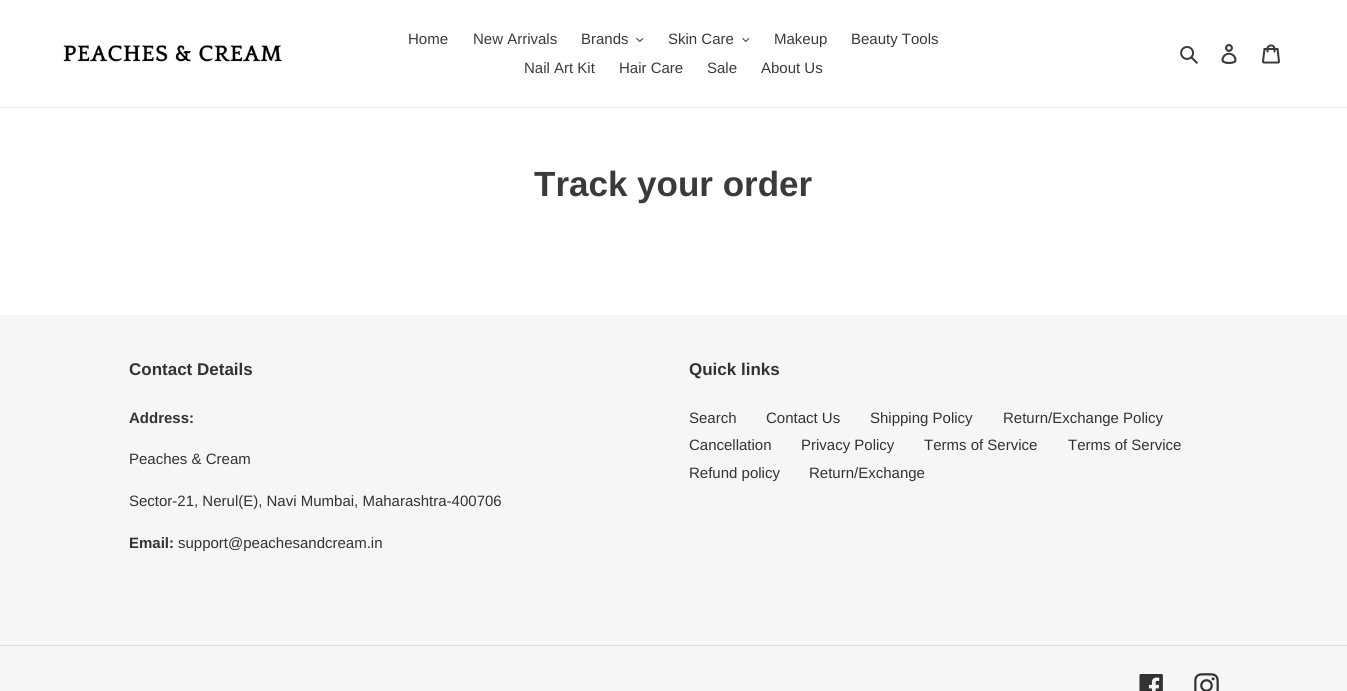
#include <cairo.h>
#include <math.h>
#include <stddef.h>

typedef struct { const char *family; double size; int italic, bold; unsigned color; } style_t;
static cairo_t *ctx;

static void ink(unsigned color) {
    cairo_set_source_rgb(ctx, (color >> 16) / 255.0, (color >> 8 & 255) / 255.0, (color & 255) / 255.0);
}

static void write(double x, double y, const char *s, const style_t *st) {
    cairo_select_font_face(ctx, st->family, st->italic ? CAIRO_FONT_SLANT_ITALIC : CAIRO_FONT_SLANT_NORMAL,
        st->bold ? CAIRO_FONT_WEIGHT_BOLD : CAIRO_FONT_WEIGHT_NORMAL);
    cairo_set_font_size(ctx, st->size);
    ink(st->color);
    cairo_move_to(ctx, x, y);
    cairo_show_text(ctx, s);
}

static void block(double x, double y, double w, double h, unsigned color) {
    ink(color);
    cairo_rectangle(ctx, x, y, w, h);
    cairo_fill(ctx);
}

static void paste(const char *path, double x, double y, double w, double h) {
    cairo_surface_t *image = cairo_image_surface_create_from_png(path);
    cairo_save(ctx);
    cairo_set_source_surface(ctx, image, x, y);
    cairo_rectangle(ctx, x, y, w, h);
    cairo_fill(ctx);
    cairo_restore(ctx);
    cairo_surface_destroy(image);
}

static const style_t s1 = {"Liberation Sans", 15, 0, 0, 0x3a3a3a};
static const style_t s2 = {"Liberation Sans", 35, 0, 1, 0x3a3a3a};
static const style_t s3 = {"Liberation Sans", 17, 0, 1, 0x333232};
static const style_t s4 = {"Liberation Sans", 15, 0, 1, 0x333232};
static const style_t s5 = {"Liberation Sans", 15, 0, 0, 0x333232};

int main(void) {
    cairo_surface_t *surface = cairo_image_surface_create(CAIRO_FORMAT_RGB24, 1347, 691);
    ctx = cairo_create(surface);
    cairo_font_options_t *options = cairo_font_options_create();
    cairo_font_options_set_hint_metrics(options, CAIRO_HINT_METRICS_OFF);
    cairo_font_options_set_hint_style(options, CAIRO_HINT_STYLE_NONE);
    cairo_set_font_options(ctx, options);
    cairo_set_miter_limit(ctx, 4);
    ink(0xffffff);
    cairo_paint(ctx);
    block(0, 107, 1347, 1, 0xebebeb);
    paste("pic1.png", 63, 44, 219, 19);
    write(408, 44, "Home", &s1);
    write(473, 44, "New Arrivals", &s1);
    write(581, 44, "Brands", &s1);
    paste("pic2.png", 636, 38, 8, 4);
    write(668, 44, "Skin Care", &s1);
    paste("pic3.png", 742, 38, 7, 4);
    write(774, 44, "Makeup", &s1);
    write(851, 44, "Beauty Tools", &s1);
    write(524, 73, "Nail Art Kit", &s1);
    write(619, 73, "Hair Care", &s1);
    write(707, 73, "Sale", &s1);
    write(761, 73, "About Us", &s1);
    paste("pic4.png", 1180, 46, 18, 18);
    paste("pic5.png", 1221, 44, 16, 20);
    paste("pic6.png", 1262, 44, 18, 20);
    write(534, 196, "Track your order", &s2);
    block(0, 315, 1347, 376, 0xf6f6f6);
    write(129, 375, "Contact Details", &s3);
    write(129, 423, "Address:", &s4);
    write(129, 464, "Peaches & Cream", &s5);
    write(129, 506, "Sector-21, Nerul(E), Navi Mumbai, Maharashtra-400706", &s5);
    write(129, 548, "Email:", &s4);
    write(178, 548, "support@peachesandcream.in", &s5);
    write(689, 375, "Quick links", &s3);
    write(689, 423, "Search", &s5);
    write(766, 423, "Contact Us", &s5);
    write(870, 423, "Shipping Policy", &s5);
    write(1003, 423, "Return/Exchange Policy", &s5);
    write(689, 450, "Cancellation", &s5);
    write(801, 450, "Privacy Policy", &s5);
    write(924, 450, "Terms of Service", &s5);
    write(1068, 450, "Terms of Service", &s5);
    write(689, 478, "Refund policy", &s5);
    write(809, 478, "Return/Exchange", &s5);
    block(0, 645, 1347, 1, 0xdddddd);
    paste("pic7.png", 1139, 674, 24, 17);
    paste("pic8.png", 1194, 673, 25, 18);
    cairo_surface_write_to_png(surface, "screenshot.png");
    cairo_font_options_destroy(options);
    cairo_destroy(ctx);
    cairo_surface_destroy(surface);
    return 0;
}
